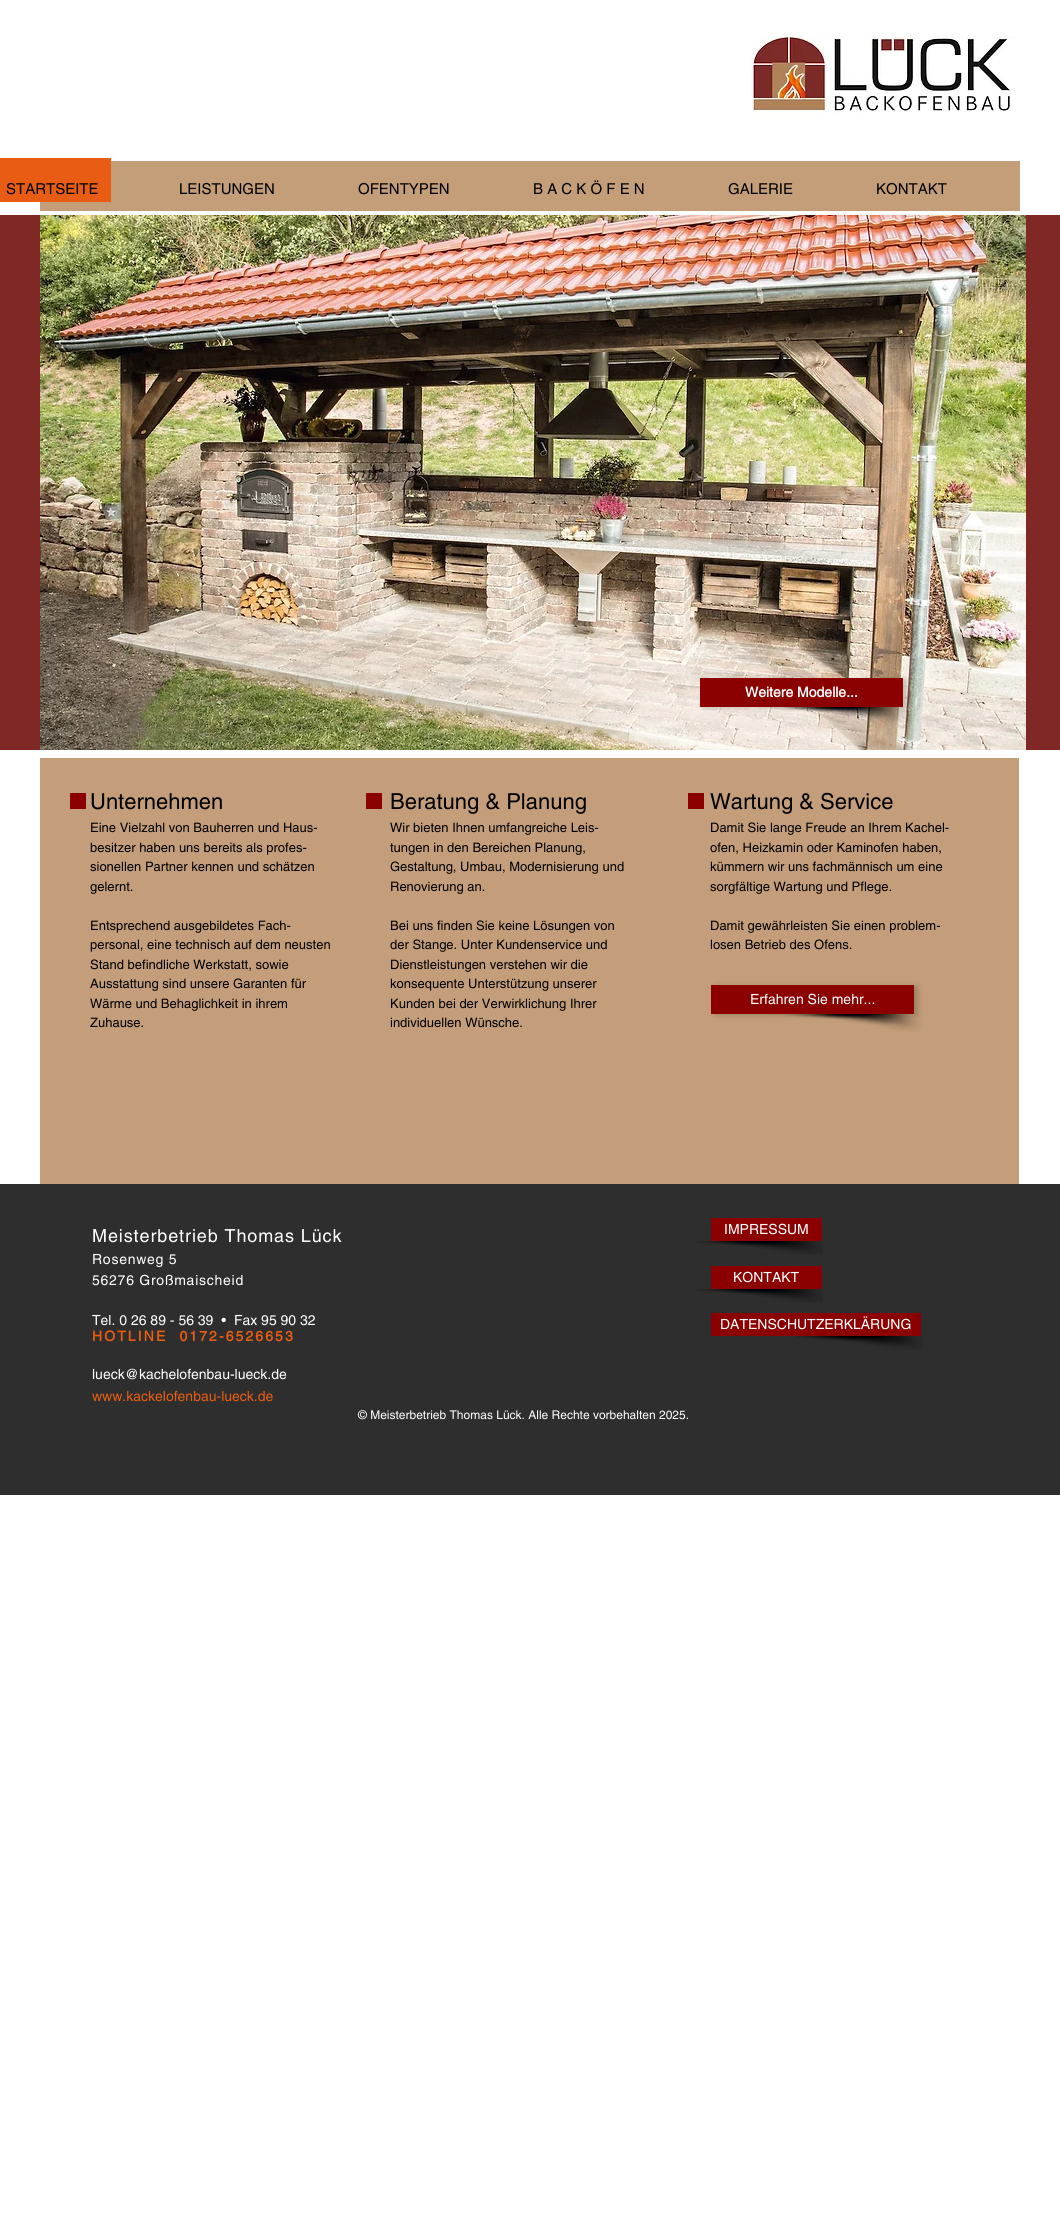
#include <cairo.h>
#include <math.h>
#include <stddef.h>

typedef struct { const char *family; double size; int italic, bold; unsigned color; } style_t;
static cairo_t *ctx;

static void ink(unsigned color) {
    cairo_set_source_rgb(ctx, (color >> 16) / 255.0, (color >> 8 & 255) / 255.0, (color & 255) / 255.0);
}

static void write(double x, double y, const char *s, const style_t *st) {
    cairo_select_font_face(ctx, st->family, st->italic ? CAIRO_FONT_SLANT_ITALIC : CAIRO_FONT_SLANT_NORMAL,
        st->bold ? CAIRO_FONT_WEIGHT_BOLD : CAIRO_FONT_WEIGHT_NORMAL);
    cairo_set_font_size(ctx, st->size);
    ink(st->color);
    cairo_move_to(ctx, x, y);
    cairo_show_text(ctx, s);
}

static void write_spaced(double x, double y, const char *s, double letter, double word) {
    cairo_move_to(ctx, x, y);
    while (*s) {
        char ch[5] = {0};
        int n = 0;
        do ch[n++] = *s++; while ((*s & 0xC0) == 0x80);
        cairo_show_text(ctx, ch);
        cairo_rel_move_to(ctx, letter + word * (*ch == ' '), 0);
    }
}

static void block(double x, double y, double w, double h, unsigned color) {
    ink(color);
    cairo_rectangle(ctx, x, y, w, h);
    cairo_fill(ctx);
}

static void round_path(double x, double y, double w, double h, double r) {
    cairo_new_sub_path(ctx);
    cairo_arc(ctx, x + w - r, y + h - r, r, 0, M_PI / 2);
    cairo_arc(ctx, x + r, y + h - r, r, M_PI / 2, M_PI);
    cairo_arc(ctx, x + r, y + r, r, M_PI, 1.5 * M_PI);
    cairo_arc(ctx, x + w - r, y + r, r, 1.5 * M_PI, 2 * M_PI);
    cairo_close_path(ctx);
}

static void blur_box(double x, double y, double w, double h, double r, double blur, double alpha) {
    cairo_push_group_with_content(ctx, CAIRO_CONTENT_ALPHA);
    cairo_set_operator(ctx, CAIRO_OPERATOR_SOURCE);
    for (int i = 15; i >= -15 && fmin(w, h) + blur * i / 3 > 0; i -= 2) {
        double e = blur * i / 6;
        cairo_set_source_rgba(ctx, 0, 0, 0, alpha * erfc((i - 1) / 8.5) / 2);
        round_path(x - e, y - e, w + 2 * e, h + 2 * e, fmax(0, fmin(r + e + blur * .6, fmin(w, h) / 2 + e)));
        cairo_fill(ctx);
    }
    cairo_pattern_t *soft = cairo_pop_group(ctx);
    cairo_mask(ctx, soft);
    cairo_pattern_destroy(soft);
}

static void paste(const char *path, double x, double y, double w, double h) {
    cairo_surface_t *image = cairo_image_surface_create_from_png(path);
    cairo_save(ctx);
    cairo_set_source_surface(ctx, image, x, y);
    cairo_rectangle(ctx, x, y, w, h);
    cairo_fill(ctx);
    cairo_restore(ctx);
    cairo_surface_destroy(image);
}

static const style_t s1 = {"helvetica", 15, 0, 0, 0x000000};
static const style_t s2 = {"helvetica", 14, 0, 1, 0xffffff};
static const style_t s3 = {"helvetica", 22, 0, 0, 0x000000};
static const style_t s4 = {"helvetica", 13, 0, 0, 0x000000};
static const style_t s5 = {"helvetica", 14, 0, 0, 0xffffff};
static const style_t s6 = {"helvetica", 14, 0, 0, 0xe85d13};
static const style_t s7 = {"helvetica", 12, 0, 0, 0xffffff};

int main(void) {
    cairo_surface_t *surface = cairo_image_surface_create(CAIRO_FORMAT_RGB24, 1060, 2218);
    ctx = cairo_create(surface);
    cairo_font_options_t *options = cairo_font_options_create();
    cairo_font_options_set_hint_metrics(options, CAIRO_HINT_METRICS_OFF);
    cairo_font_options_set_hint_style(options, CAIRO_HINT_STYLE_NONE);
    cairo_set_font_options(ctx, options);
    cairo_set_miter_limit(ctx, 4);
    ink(0xffffff);
    cairo_paint(ctx);
    paste("pic1.png", 1017, 38, 2, 73);
    block(40, 161, 980, 50, 0xc49d79);
    block(0, 158, 111, 44, 0xe85d13);
    write(6, 194, "STARTSEITE", &s1);
    write(179, 194, "LEISTUNGEN", &s1);
    write(358, 194, "OFENTYPEN", &s1);
    write(533, 194, "B A C K Ö F E N", &s1);
    write(728, 194, "GALERIE", &s1);
    write(876, 194, "KONTAKT", &s1);
    paste("pic2.png", 750, 36, 267, 80);
    block(0, 215, 1060, 535, 0x802825);
    paste("pic3.png", 40, 215, 986, 535);
    paste("pic4.png", 758, 707, 154, 18);
    ink(0x000000);
    blur_box(704, 679, 203, 29, 0, 3, 0.2);
    block(700, 678, 203, 29, 0x8b0000);
    write(745, 697, "Weitere Modelle...", &s2);
    block(40, 758, 979, 426, 0xc49e7a);
    block(70, 793, 16, 16, 0x8b0000);
    write(90, 809, "Unternehmen", &s3);
    write(90, 832, "Eine Vielzahl von Bauherren und Haus-", &s4);
    write(90, 852, "besitzer haben uns bereits als profes-", &s4);
    write(90, 871, "sionellen Partner kennen und schätzen", &s4);
    write(90, 891, "gelernt.", &s4);
    write(90, 930, "Entsprechend ausgebildetes Fach-", &s4);
    write(90, 949, "personal, eine technisch auf dem neusten", &s4);
    write(90, 969, "Stand befindliche Werkstatt, sowie", &s4);
    write(90, 988, "Ausstattung sind unsere Garanten für", &s4);
    write(90, 1008, "Wärme und Behaglichkeit in ihrem", &s4);
    write(90, 1027, "Zuhause.", &s4);
    block(366, 793, 16, 16, 0x8b0000);
    write(390, 809, "Beratung & Planung", &s3);
    write(390, 832, "Wir bieten Ihnen umfangreiche Leis-", &s4);
    write(390, 852, "tungen in den Bereichen Planung,", &s4);
    write(390, 871, "Gestaltung, Umbau, Modernisierung und", &s4);
    write(390, 891, "Renovierung an.", &s4);
    write(390, 930, "Bei uns finden Sie keine Lösungen von", &s4);
    write(390, 949, "der Stange. Unter Kundenservice und", &s4);
    write(390, 969, "Dienstleistungen verstehen wir die", &s4);
    write(390, 988, "konsequente Unterstützung unserer", &s4);
    write(390, 1008, "Kunden bei der Verwirklichung Ihrer", &s4);
    write(390, 1027, "individuellen Wünsche.", &s4);
    block(688, 793, 16, 16, 0x8b0000);
    write(710, 809, "Wartung & Service", &s3);
    write(710, 832, "Damit Sie lange Freude an Ihrem Kachel-", &s4);
    write(710, 852, "ofen, Heizkamin oder Kaminofen haben,", &s4);
    write(710, 871, "kümmern wir uns fachmännisch um eine", &s4);
    write(710, 891, "sorgfältige Wartung und Pflege.", &s4);
    write(710, 930, "Damit gewährleisten Sie einen problem-", &s4);
    write(710, 949, "losen Betrieb des Ofens.", &s4);
    paste("pic5.png", 769, 1014, 154, 18);
    ink(0x000000);
    blur_box(715, 986, 203, 29, 0, 3, 0.2);
    block(711, 985, 203, 29, 0x8b0000);
    write(750, 1004, "Erfahren Sie mehr...", &s5);
    block(0, 1184, 1060, 311, 0x2f2e2e);
    cairo_set_font_size(ctx, 18);
    ink(0xffffff);
    write_spaced(92, 1242, "Meisterbetrieb Thomas Lück", 0.9, 0);
    cairo_set_font_size(ctx, 14);
    write_spaced(92, 1264, "Rosenweg 5", 0.75, 0);
    write_spaced(92, 1285, "56276 Großmaischeid", 0.75, 0);
    write(92, 1325, "Tel. 0 26 89 - 56 39  •  Fax 95 90 32", &s5);
    cairo_select_font_face(ctx, "helvetica", CAIRO_FONT_SLANT_NORMAL, CAIRO_FONT_WEIGHT_BOLD);
    ink(0xe85d13);
    write_spaced(92, 1341, "HOTLINE  0172-6526653", 2.1, 0);
    write(92, 1379, "lueck@kachelofenbau-lueck.de", &s5);
    write(92, 1401, "www.kackelofenbau-lueck.de", &s6);
    block(711, 1218, 111, 23, 0x8b0000);
    write(724, 1234, "IMPRESSUM", &s5);
    paste("pic6.png", 696, 1241, 127, 14);
    block(711, 1266, 111, 23, 0x8b0000);
    write(733, 1282, "KONTAKT", &s5);
    paste("pic6.png", 696, 1289, 127, 14);
    block(711, 1313, 210, 23, 0x8b0000);
    write(720, 1329, "DATENSCHUTZERKLÄRUNG", &s5);
    paste("pic6.png", 795, 1336, 127, 14);
    write(358, 1419, "© Meisterbetrieb Thomas Lück. Alle Rechte vorbehalten 2025.", &s7);
    cairo_surface_write_to_png(surface, "screenshot.png");
    cairo_font_options_destroy(options);
    cairo_destroy(ctx);
    cairo_surface_destroy(surface);
    return 0;
}
